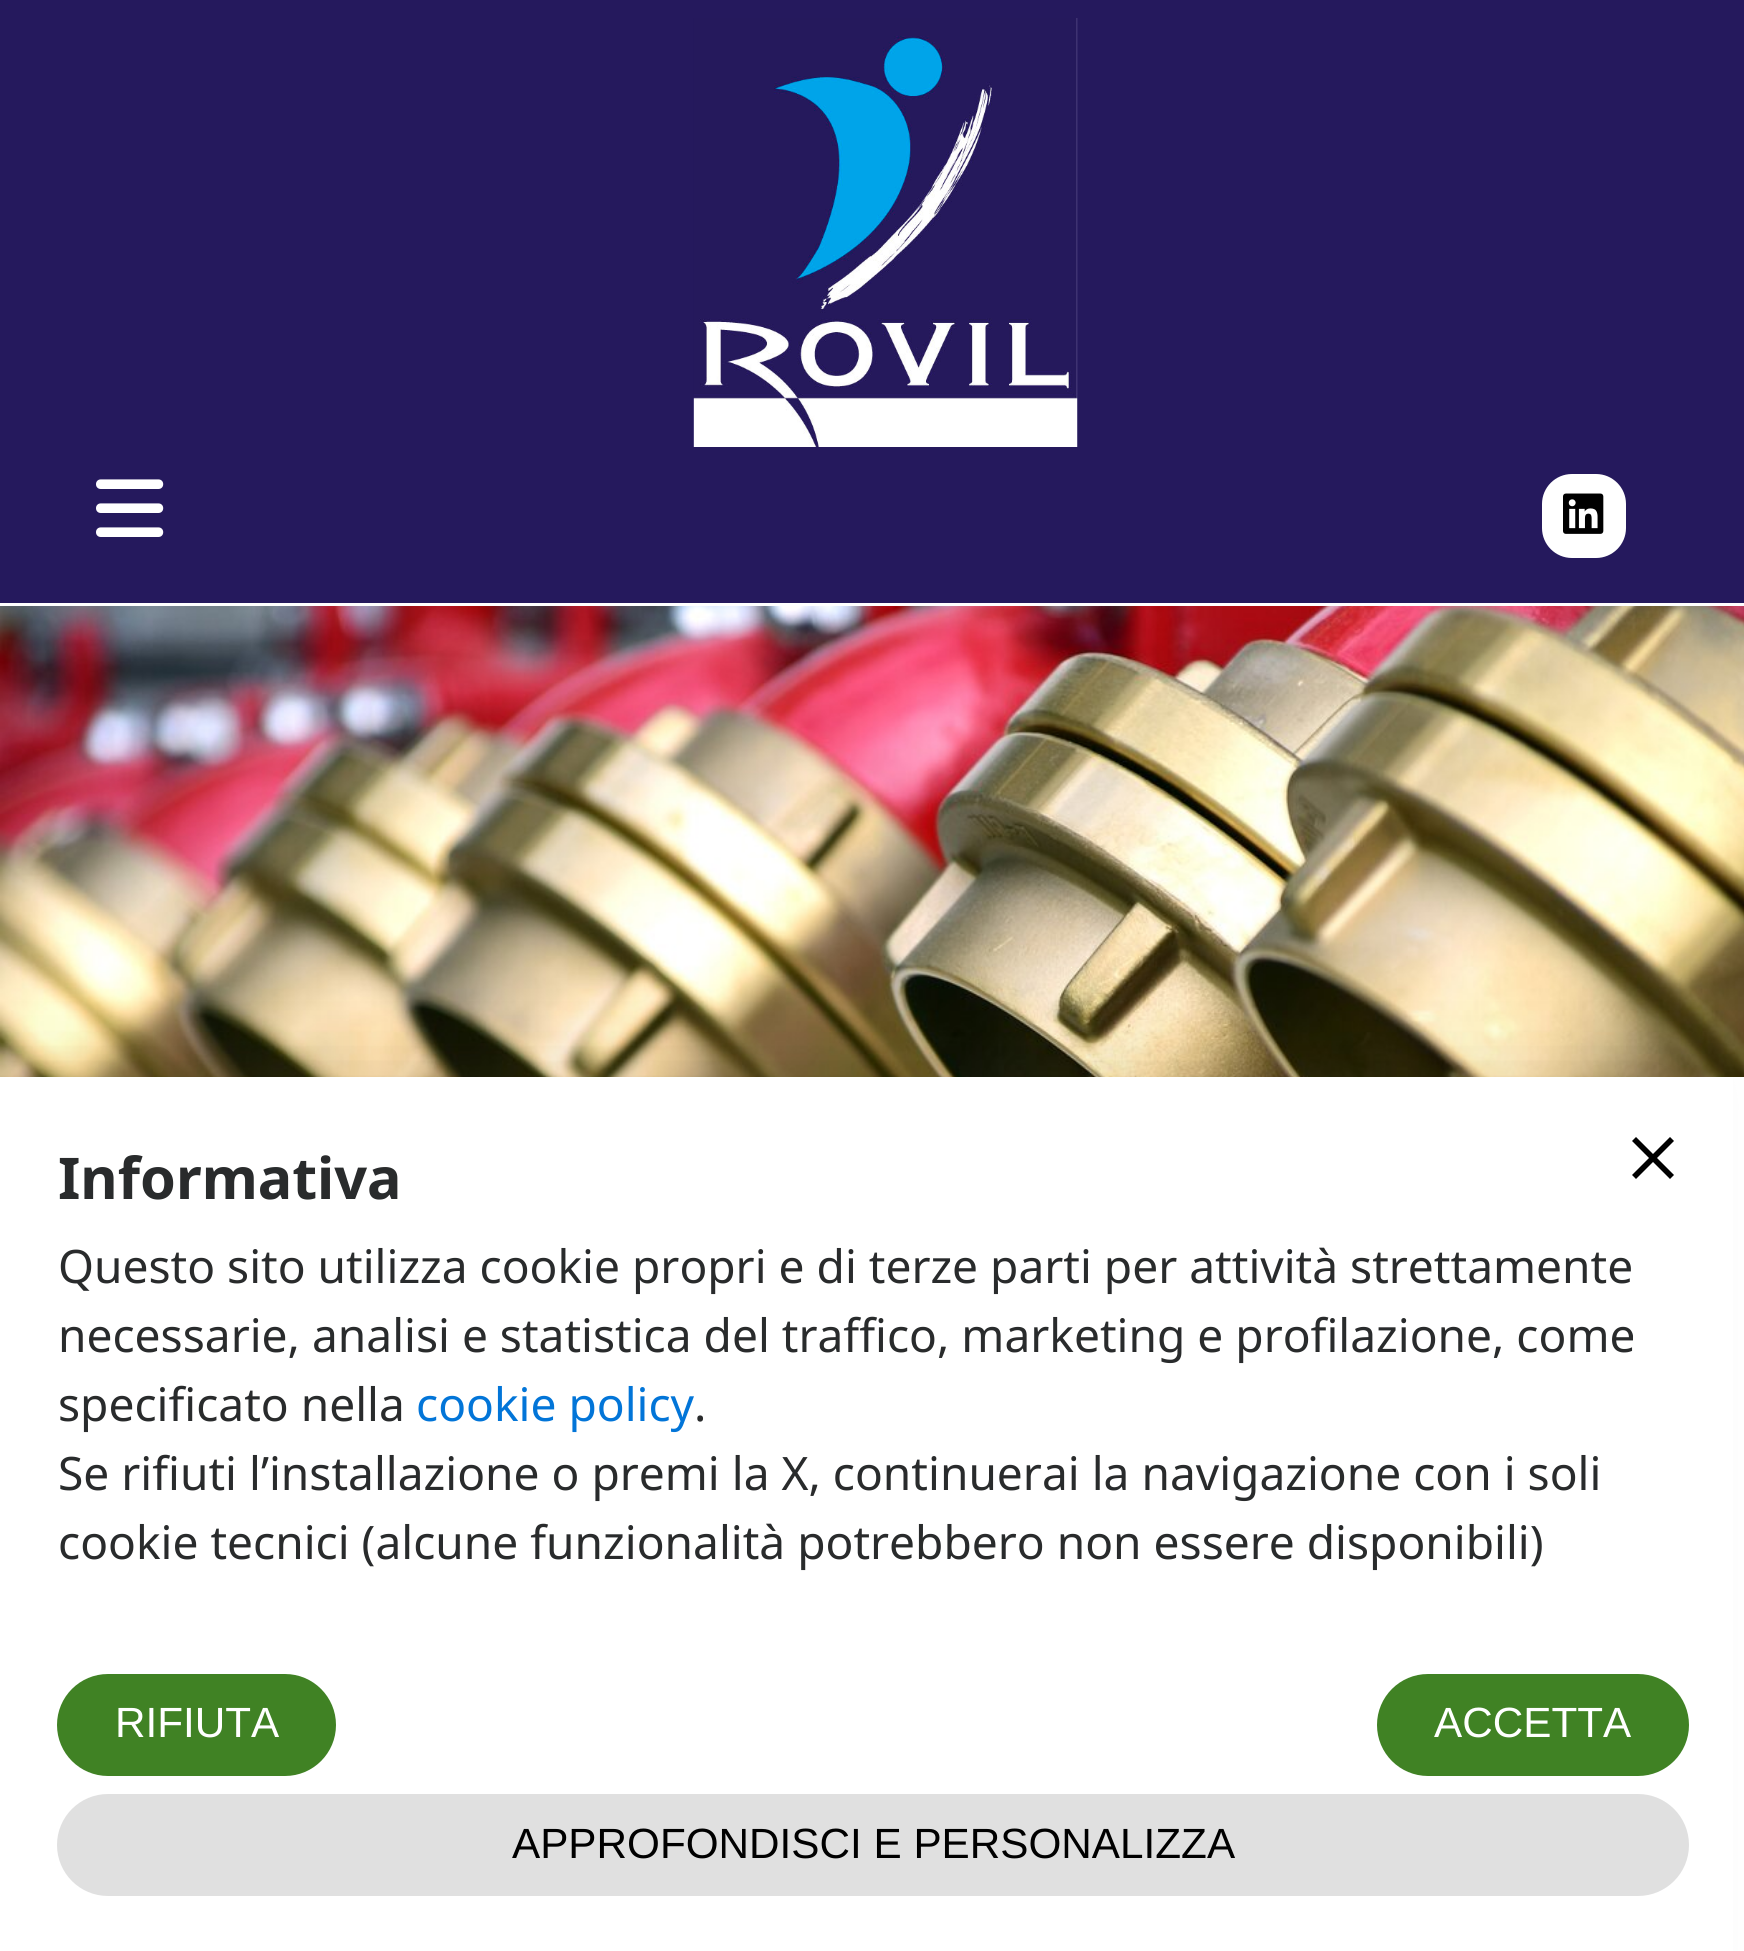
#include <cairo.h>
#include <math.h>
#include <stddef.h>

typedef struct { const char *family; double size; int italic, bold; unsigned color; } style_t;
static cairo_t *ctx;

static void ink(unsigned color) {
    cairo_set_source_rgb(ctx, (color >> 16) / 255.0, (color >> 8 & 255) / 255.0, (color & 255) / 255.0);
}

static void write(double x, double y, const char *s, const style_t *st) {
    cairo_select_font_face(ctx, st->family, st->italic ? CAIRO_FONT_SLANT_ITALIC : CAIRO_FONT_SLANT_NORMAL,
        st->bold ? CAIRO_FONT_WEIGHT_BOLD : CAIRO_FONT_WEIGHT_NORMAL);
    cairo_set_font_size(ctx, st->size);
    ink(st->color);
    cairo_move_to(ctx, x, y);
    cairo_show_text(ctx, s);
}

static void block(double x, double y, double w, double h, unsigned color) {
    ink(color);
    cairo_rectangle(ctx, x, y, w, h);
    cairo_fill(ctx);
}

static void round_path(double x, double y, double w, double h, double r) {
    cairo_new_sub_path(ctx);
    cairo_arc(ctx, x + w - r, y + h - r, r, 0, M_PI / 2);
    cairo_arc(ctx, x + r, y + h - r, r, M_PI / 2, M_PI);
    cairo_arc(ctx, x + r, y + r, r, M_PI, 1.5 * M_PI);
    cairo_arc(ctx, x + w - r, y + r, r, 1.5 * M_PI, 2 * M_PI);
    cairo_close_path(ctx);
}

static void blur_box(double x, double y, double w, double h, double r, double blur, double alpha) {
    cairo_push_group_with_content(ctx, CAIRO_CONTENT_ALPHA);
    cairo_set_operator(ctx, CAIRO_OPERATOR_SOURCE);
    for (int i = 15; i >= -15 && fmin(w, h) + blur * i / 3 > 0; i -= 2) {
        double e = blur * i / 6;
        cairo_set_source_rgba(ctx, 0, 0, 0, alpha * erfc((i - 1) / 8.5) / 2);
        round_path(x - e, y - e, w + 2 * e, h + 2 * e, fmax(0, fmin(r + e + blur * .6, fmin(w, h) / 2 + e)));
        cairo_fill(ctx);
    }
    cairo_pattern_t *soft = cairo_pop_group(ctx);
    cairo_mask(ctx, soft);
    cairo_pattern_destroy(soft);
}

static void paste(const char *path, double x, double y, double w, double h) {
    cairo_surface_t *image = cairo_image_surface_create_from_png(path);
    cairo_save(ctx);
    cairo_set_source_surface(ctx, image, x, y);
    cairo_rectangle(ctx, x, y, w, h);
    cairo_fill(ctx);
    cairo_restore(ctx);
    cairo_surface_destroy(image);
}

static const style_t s1 = {"Noto Sans", 57.5, 0, 1, 0x292b2c};
static const style_t s2 = {"Noto Sans", 46.1, 0, 0, 0x292b2c};
static const style_t s3 = {"Noto Sans", 46.1, 0, 0, 0x0275d8};
static const style_t s4 = {"Liberation Sans", 42.25, 0, 0, 0xffffff};
static const style_t s5 = {"Liberation Sans", 42.25, 0, 0, 0x000000};

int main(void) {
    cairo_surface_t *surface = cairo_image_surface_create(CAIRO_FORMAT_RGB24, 1744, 1951);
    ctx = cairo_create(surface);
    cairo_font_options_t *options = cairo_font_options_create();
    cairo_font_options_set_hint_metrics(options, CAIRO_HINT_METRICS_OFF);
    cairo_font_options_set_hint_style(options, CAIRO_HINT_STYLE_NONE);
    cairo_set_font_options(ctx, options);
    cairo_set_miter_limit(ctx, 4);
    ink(0xffffff);
    cairo_paint(ctx);
    block(0, 0, 1744, 603, 0x25195d);
    paste("pic1.png", 693, 18, 385, 429);
    paste("pic2.png", 96, 479, 68, 58);
    ink(0xffffff);
    round_path(1542, 474, 84, 84, 30);
    cairo_fill(ctx);
    paste("pic3.png", 1563, 493, 41, 41);
    paste("pic4.png", 0, 606, 1744, 471);
    ink(0x000000);
    blur_box(-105, 1083, 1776, 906, 0, 45, 0.12);
    block(0, 1077, 1733, 874, 0xffffff);
    write(58, 1199, "Informativa", &s1);
    ink(0x000000);
    cairo_new_path(ctx);
    cairo_move_to(ctx, 1674, 1141);
    cairo_line_to(ctx, 1670, 1137);
    cairo_line_to(ctx, 1653, 1154);
    cairo_line_to(ctx, 1636, 1137);
    cairo_line_to(ctx, 1632, 1141);
    cairo_line_to(ctx, 1649, 1158);
    cairo_line_to(ctx, 1632, 1175);
    cairo_line_to(ctx, 1636, 1179);
    cairo_line_to(ctx, 1653, 1162);
    cairo_line_to(ctx, 1670, 1179);
    cairo_line_to(ctx, 1674, 1175);
    cairo_line_to(ctx, 1657, 1158);
    cairo_close_path(ctx);
    cairo_fill(ctx);
    write(58, 1283, "Questo sito utilizza cookie propri e di terze parti per attività strettamente", &s2);
    write(58, 1352, "necessarie, analisi e statistica del traffico, marketing e profilazione, come", &s2);
    write(58, 1421, "specificato nella", &s2);
    write(416, 1421, "cookie policy", &s3);
    write(694, 1421, ".", &s2);
    write(58, 1490, "Se rifiuti l’installazione o premi la X, continuerai la navigazione con i soli", &s2);
    write(58, 1559, "cookie tecnici (alcune funzionalità potrebbero non essere disponibili)", &s2);
    ink(0x408224);
    round_path(57, 1674, 279, 102, 51);
    cairo_fill(ctx);
    write(115, 1737, "RIFIUTA", &s4);
    ink(0x408224);
    round_path(1377, 1674, 312, 102, 51);
    cairo_fill(ctx);
    write(1434, 1737, "ACCETTA", &s4);
    ink(0xe0e0e0);
    round_path(57, 1794, 1632, 102, 51);
    cairo_fill(ctx);
    write(512, 1858, "APPROFONDISCI E PERSONALIZZA", &s5);
    cairo_surface_write_to_png(surface, "screenshot.png");
    cairo_font_options_destroy(options);
    cairo_destroy(ctx);
    cairo_surface_destroy(surface);
    return 0;
}
